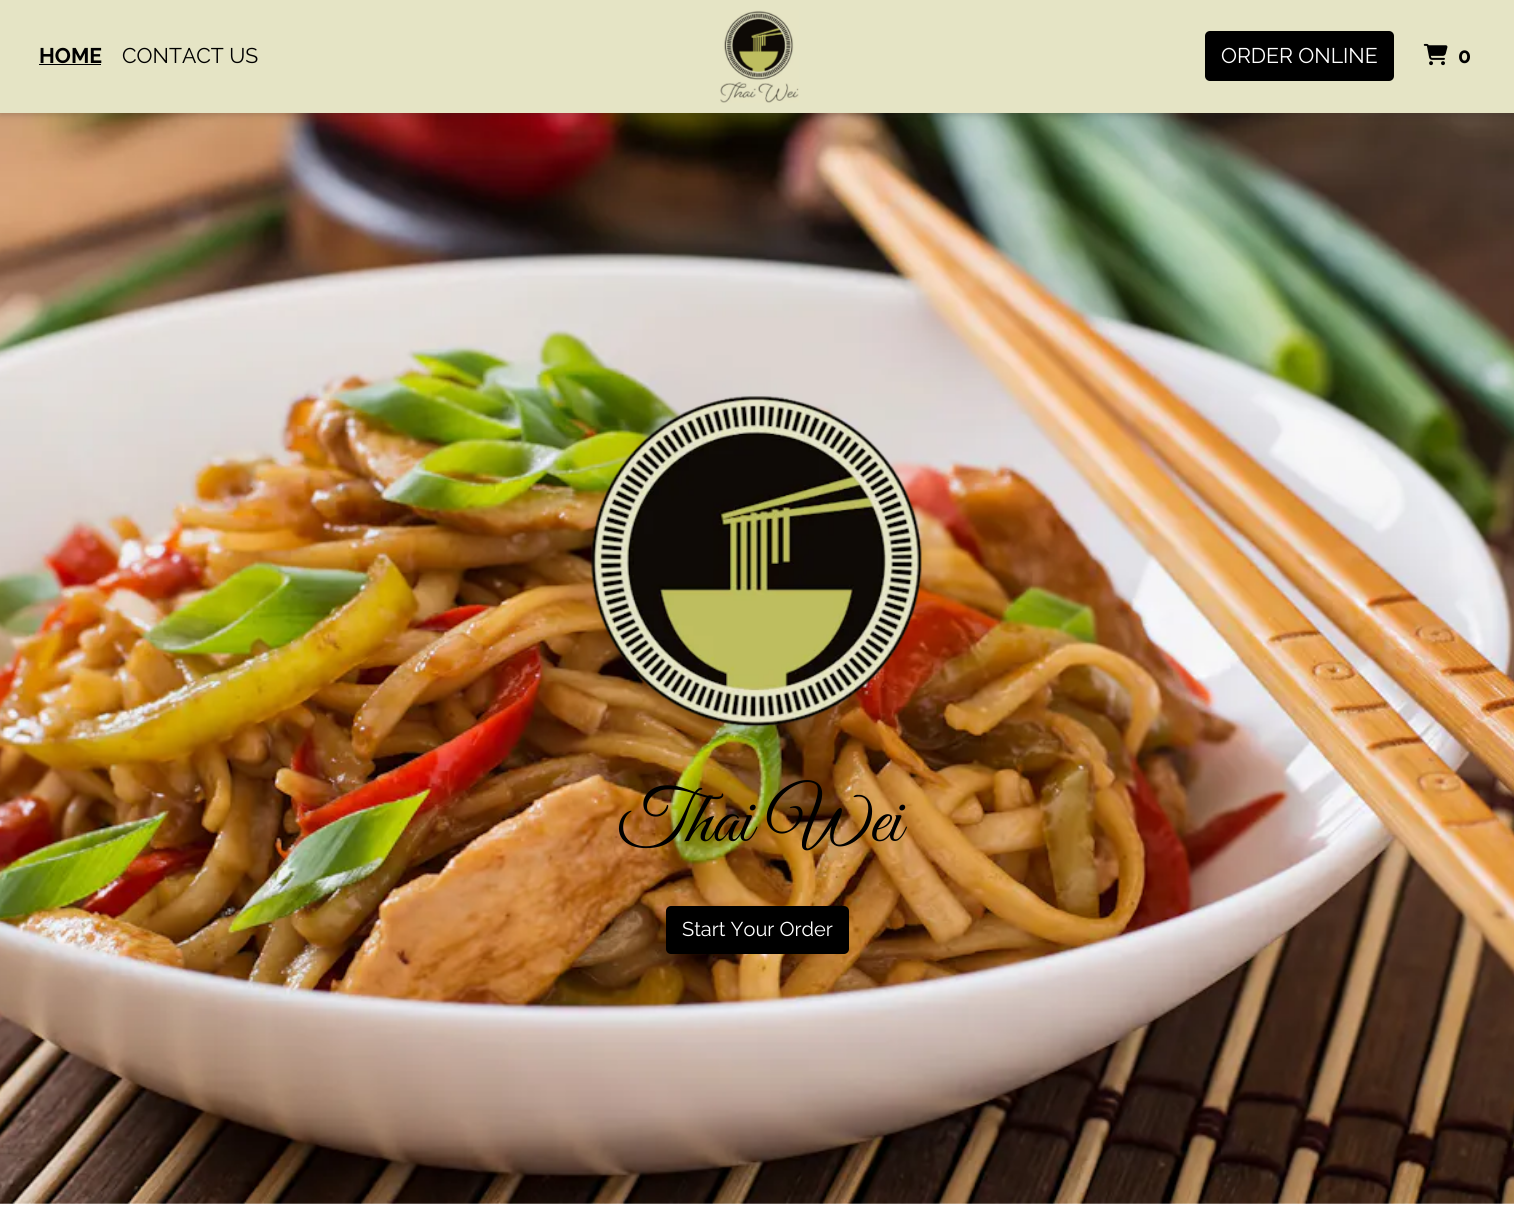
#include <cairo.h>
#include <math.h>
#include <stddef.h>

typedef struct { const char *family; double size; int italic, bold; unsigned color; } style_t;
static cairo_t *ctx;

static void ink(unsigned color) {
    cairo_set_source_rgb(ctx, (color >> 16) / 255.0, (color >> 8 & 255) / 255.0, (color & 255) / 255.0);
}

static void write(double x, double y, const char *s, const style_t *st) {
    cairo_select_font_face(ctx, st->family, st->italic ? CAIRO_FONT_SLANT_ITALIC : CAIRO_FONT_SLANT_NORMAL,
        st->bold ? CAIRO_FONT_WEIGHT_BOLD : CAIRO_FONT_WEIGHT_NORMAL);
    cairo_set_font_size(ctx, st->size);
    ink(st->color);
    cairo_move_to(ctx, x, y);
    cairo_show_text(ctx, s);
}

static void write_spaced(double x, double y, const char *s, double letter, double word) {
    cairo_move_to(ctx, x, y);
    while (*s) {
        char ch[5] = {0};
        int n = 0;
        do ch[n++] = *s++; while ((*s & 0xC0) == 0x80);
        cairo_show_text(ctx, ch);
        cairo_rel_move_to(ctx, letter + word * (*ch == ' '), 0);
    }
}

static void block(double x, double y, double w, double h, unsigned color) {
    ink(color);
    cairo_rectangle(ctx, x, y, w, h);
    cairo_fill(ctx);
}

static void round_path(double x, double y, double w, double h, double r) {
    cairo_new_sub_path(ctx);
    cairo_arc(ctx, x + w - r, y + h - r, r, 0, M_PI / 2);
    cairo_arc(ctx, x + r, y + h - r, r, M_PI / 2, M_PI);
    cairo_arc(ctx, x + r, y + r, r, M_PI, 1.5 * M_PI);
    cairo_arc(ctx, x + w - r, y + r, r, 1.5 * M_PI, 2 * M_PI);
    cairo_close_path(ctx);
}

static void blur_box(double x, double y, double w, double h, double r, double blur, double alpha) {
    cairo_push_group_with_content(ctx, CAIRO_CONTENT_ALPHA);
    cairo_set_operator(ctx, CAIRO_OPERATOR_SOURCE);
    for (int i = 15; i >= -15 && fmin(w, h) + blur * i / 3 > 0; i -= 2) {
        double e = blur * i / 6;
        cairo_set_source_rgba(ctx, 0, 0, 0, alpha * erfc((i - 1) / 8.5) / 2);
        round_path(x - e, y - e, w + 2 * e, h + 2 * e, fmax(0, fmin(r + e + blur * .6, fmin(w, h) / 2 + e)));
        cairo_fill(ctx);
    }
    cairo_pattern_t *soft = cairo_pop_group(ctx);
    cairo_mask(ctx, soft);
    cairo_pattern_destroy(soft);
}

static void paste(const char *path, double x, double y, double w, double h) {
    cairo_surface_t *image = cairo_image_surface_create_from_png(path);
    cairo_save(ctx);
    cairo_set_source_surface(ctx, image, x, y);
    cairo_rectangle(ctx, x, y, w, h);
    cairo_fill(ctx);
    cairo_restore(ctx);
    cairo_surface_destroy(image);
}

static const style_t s1 = {"Raleway", 21.25, 0, 1, 0x000000};
static const style_t s2 = {"Raleway", 21.25, 0, 0, 0x000000};
static const style_t s3 = {"Raleway", 21.25, 0, 0, 0xffffff};
static const style_t s4 = {"Raleway", 20, 0, 0, 0xffffff};

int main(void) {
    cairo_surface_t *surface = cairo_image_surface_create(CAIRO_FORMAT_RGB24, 1514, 1212);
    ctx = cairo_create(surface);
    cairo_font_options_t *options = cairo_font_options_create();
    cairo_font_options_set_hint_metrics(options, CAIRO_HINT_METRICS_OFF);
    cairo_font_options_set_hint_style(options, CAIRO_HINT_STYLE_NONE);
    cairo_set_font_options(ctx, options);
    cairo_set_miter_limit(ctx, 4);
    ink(0xffffff);
    cairo_paint(ctx);
    paste("pic3.png", 0, 113, 1514, 1091);
    ink(0x202124);
    blur_box(0, 1, 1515, 113, 0, 4, 0.28);
    block(0, 0, 1514, 113, 0xe5e4c5);
    write(39, 63, "HOME", &s1);
    block(39, 64, 62, 1, 0x000000);
    write(122, 63, "CONTACT US", &s2);
    paste("pic1.png", 720, 10, 79, 93);
    round_path(1205, 31, 189, 50, 5);
    cairo_fill(ctx);
    write(1221, 63, "ORDER ONLINE", &s3);
    paste("pic2.png", 1423, 43, 25, 23);
    write(1458, 63, "0", &s1);
    paste("pic4.png", 591, 396, 331, 331);
    cairo_select_font_face(ctx, "Great Vibes", CAIRO_FONT_SLANT_NORMAL, CAIRO_FONT_WEIGHT_NORMAL);
    cairo_set_font_size(ctx, 75);
    write_spaced(617, 841, "Thai Wei", 0, 3);
    round_path(666, 906, 183, 48, 5);
    cairo_fill(ctx);
    write(682, 936, "Start Your Order", &s4);
    cairo_surface_write_to_png(surface, "screenshot.png");
    cairo_font_options_destroy(options);
    cairo_destroy(ctx);
    cairo_surface_destroy(surface);
    return 0;
}
